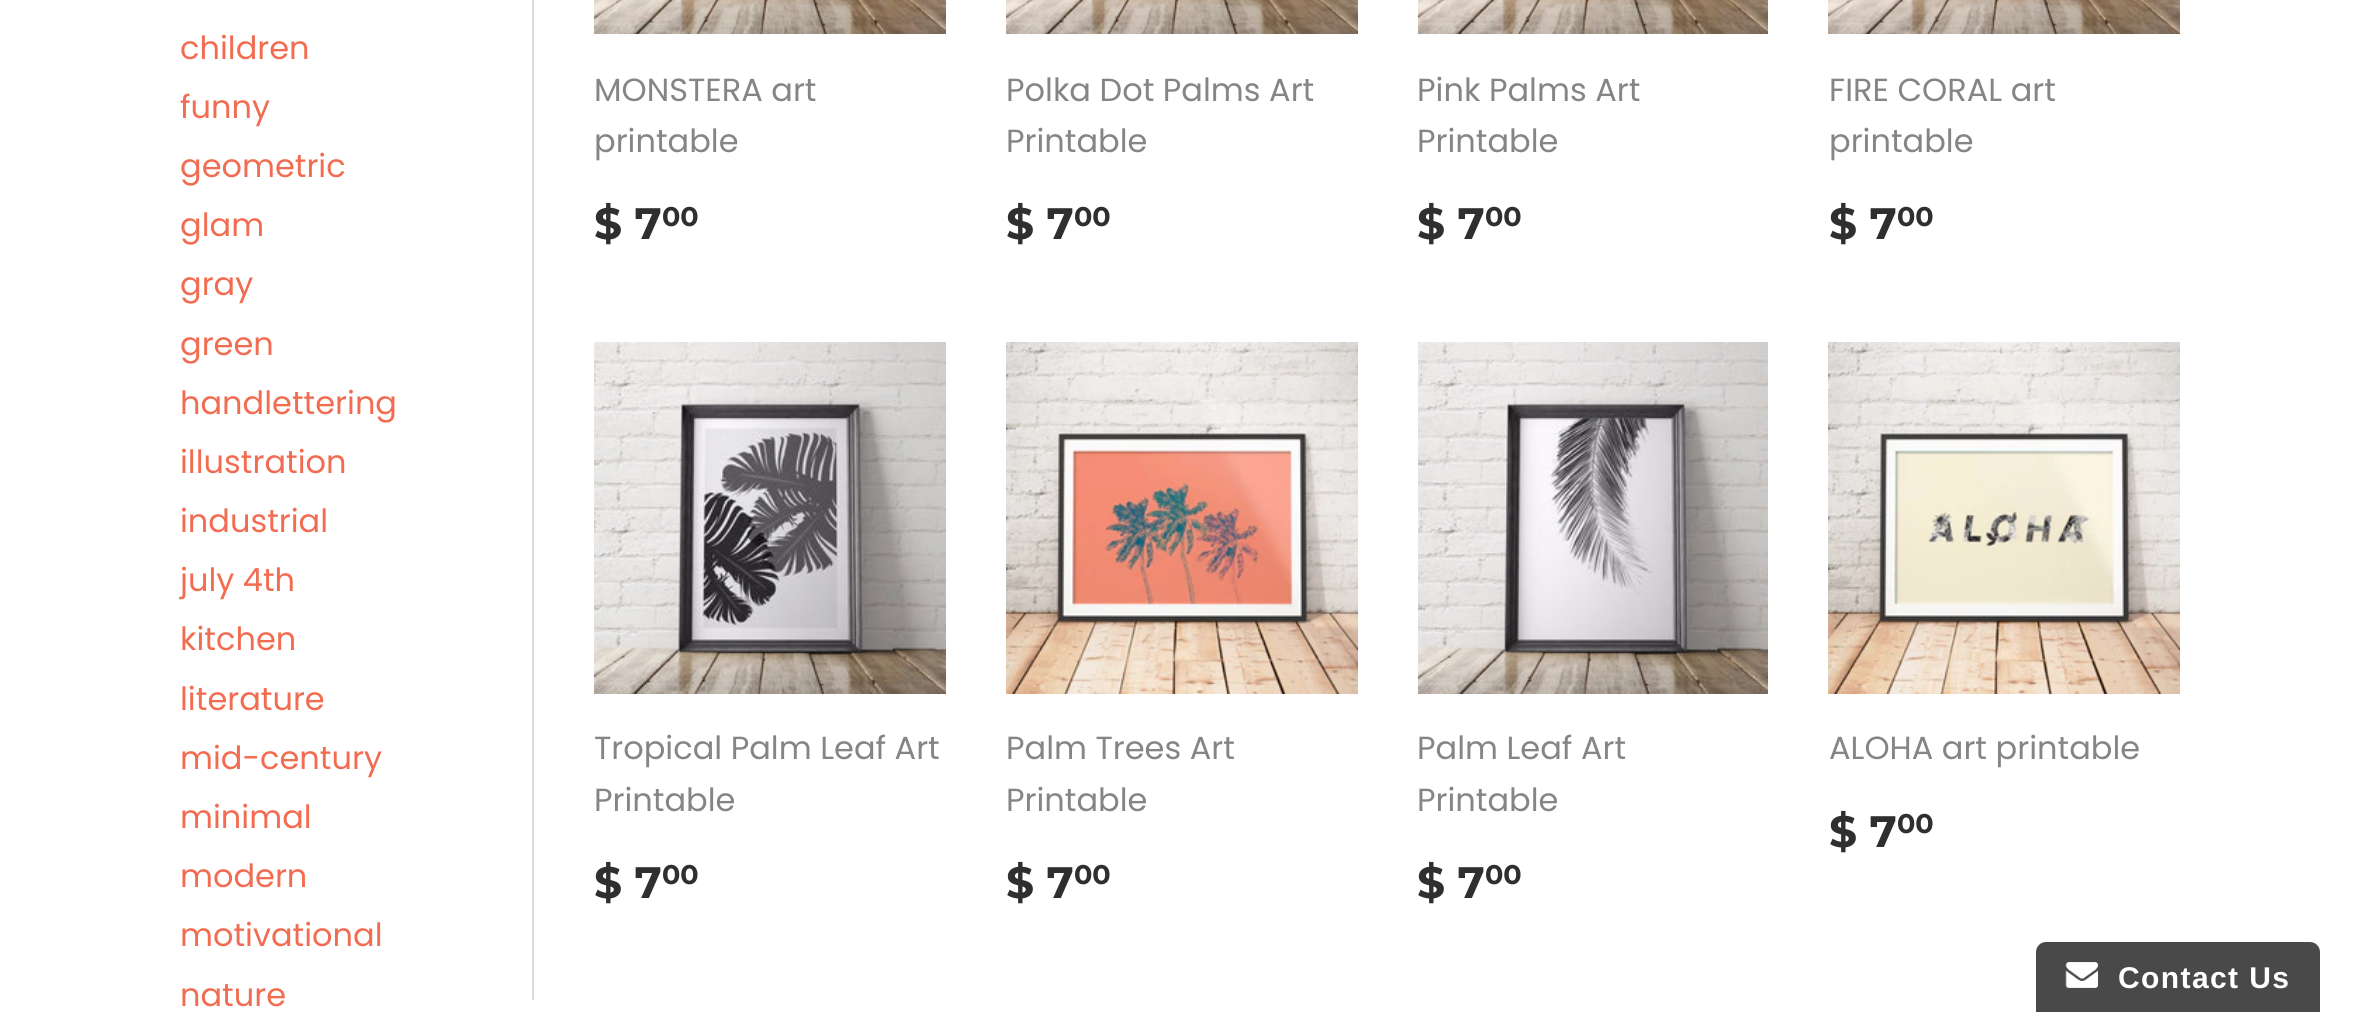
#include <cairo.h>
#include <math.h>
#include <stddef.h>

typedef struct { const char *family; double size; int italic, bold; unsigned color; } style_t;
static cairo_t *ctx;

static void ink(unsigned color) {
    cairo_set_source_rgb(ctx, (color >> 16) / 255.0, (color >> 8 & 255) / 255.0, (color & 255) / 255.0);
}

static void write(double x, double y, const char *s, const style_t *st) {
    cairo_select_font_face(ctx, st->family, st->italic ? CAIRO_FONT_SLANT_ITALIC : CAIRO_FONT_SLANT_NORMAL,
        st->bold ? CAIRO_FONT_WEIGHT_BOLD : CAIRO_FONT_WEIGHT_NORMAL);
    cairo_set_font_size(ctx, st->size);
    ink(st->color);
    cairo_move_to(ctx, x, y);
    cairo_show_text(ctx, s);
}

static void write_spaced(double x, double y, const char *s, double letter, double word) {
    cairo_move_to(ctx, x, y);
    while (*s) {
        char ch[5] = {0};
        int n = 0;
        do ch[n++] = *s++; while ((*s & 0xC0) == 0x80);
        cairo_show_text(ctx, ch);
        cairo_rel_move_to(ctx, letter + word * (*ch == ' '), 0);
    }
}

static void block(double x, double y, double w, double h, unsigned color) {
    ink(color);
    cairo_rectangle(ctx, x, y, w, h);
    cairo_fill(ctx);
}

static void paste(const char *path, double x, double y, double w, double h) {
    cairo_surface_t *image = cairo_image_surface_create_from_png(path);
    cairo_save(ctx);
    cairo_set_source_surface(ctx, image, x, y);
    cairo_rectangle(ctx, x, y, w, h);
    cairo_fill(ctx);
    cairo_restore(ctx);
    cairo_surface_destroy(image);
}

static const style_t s1 = {"Poppins", 32, 0, 0, 0xf26c52};
static const style_t s2 = {"Poppins", 32, 0, 0, 0x858585};
static const style_t s3 = {"Montserrat", 44, 0, 1, 0x2f2f2f};
static const style_t s4 = {"Montserrat", 27, 0, 1, 0x2f2f2f};

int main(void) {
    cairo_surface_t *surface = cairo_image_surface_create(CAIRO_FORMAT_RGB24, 2359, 1012);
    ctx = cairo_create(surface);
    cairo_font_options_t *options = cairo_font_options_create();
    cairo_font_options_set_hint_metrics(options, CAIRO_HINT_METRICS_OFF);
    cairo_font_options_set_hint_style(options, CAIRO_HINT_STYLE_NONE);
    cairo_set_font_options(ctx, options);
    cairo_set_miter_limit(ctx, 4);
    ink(0xffffff);
    cairo_paint(ctx);
    write(180, 59, "children", &s1);
    write(180, 118, "funny", &s1);
    write(180, 177, "geometric", &s1);
    write(180, 236, "glam", &s1);
    write(180, 295, "gray", &s1);
    write(180, 355, "green", &s1);
    write(180, 414, "handlettering", &s1);
    write(180, 473, "illustration", &s1);
    write(180, 532, "industrial", &s1);
    write(180, 591, "july 4th", &s1);
    write(180, 650, "kitchen", &s1);
    write(180, 710, "literature", &s1);
    write(180, 769, "mid-century", &s1);
    write(180, 828, "minimal", &s1);
    write(180, 887, "modern", &s1);
    write(180, 946, "motivational", &s1);
    write(180, 1006, "nature", &s1);
    block(532, 0, 2, 1000, 0xdcdcdc);
    paste("pic1.png", 594, 0, 352, 34);
    write(594, 101, "MONSTERA art", &s2);
    write(594, 152, "printable", &s2);
    write(594, 239, "$ 7", &s3);
    write(662, 226, "00", &s4);
    paste("pic2.png", 1006, 0, 352, 34);
    write(1006, 101, "Polka Dot Palms Art", &s2);
    write(1006, 152, "Printable", &s2);
    write(1006, 239, "$ 7", &s3);
    write(1074, 226, "00", &s4);
    paste("pic3.png", 1418, 0, 350, 34);
    write(1417, 101, "Pink Palms Art", &s2);
    write(1417, 152, "Printable", &s2);
    write(1417, 239, "$ 7", &s3);
    write(1485, 226, "00", &s4);
    paste("pic4.png", 1828, 0, 352, 34);
    write(1829, 101, "FIRE CORAL art", &s2);
    write(1829, 152, "printable", &s2);
    write(1829, 239, "$ 7", &s3);
    write(1897, 226, "00", &s4);
    paste("pic5.png", 594, 342, 352, 352);
    write(594, 759, "Tropical Palm Leaf Art", &s2);
    write(594, 811, "Printable", &s2);
    write(594, 898, "$ 7", &s3);
    write(662, 884, "00", &s4);
    paste("pic6.png", 1006, 342, 352, 352);
    write(1006, 759, "Palm Trees Art", &s2);
    write(1006, 811, "Printable", &s2);
    write(1006, 898, "$ 7", &s3);
    write(1074, 884, "00", &s4);
    paste("pic7.png", 1418, 342, 350, 352);
    write(1417, 759, "Palm Leaf Art", &s2);
    write(1417, 811, "Printable", &s2);
    write(1417, 898, "$ 7", &s3);
    write(1485, 884, "00", &s4);
    paste("pic8.png", 1828, 342, 352, 352);
    write(1829, 759, "ALOHA art printable", &s2);
    write(1829, 847, "$ 7", &s3);
    write(1897, 833, "00", &s4);
    ink(0x494949);
    cairo_new_path(ctx);
    cairo_move_to(ctx, 2046, 942);
    cairo_line_to(ctx, 2310, 942);
    cairo_curve_to(ctx, 2315.5, 942, 2320, 946.5, 2320, 952);
    cairo_line_to(ctx, 2320, 1012);
    cairo_line_to(ctx, 2036, 1012);
    cairo_line_to(ctx, 2036, 952);
    cairo_curve_to(ctx, 2036, 946.5, 2040.5, 942, 2046, 942);
    cairo_close_path(ctx);
    cairo_fill(ctx);
    paste("pic9.png", 2065, 962, 34, 26);
    cairo_select_font_face(ctx, "Liberation Sans", CAIRO_FONT_SLANT_NORMAL, CAIRO_FONT_WEIGHT_BOLD);
    cairo_set_font_size(ctx, 30);
    ink(0xffffff);
    write_spaced(2118, 988, "Contact Us", 1.4, 0);
    cairo_surface_write_to_png(surface, "screenshot.png");
    cairo_font_options_destroy(options);
    cairo_destroy(ctx);
    cairo_surface_destroy(surface);
    return 0;
}
